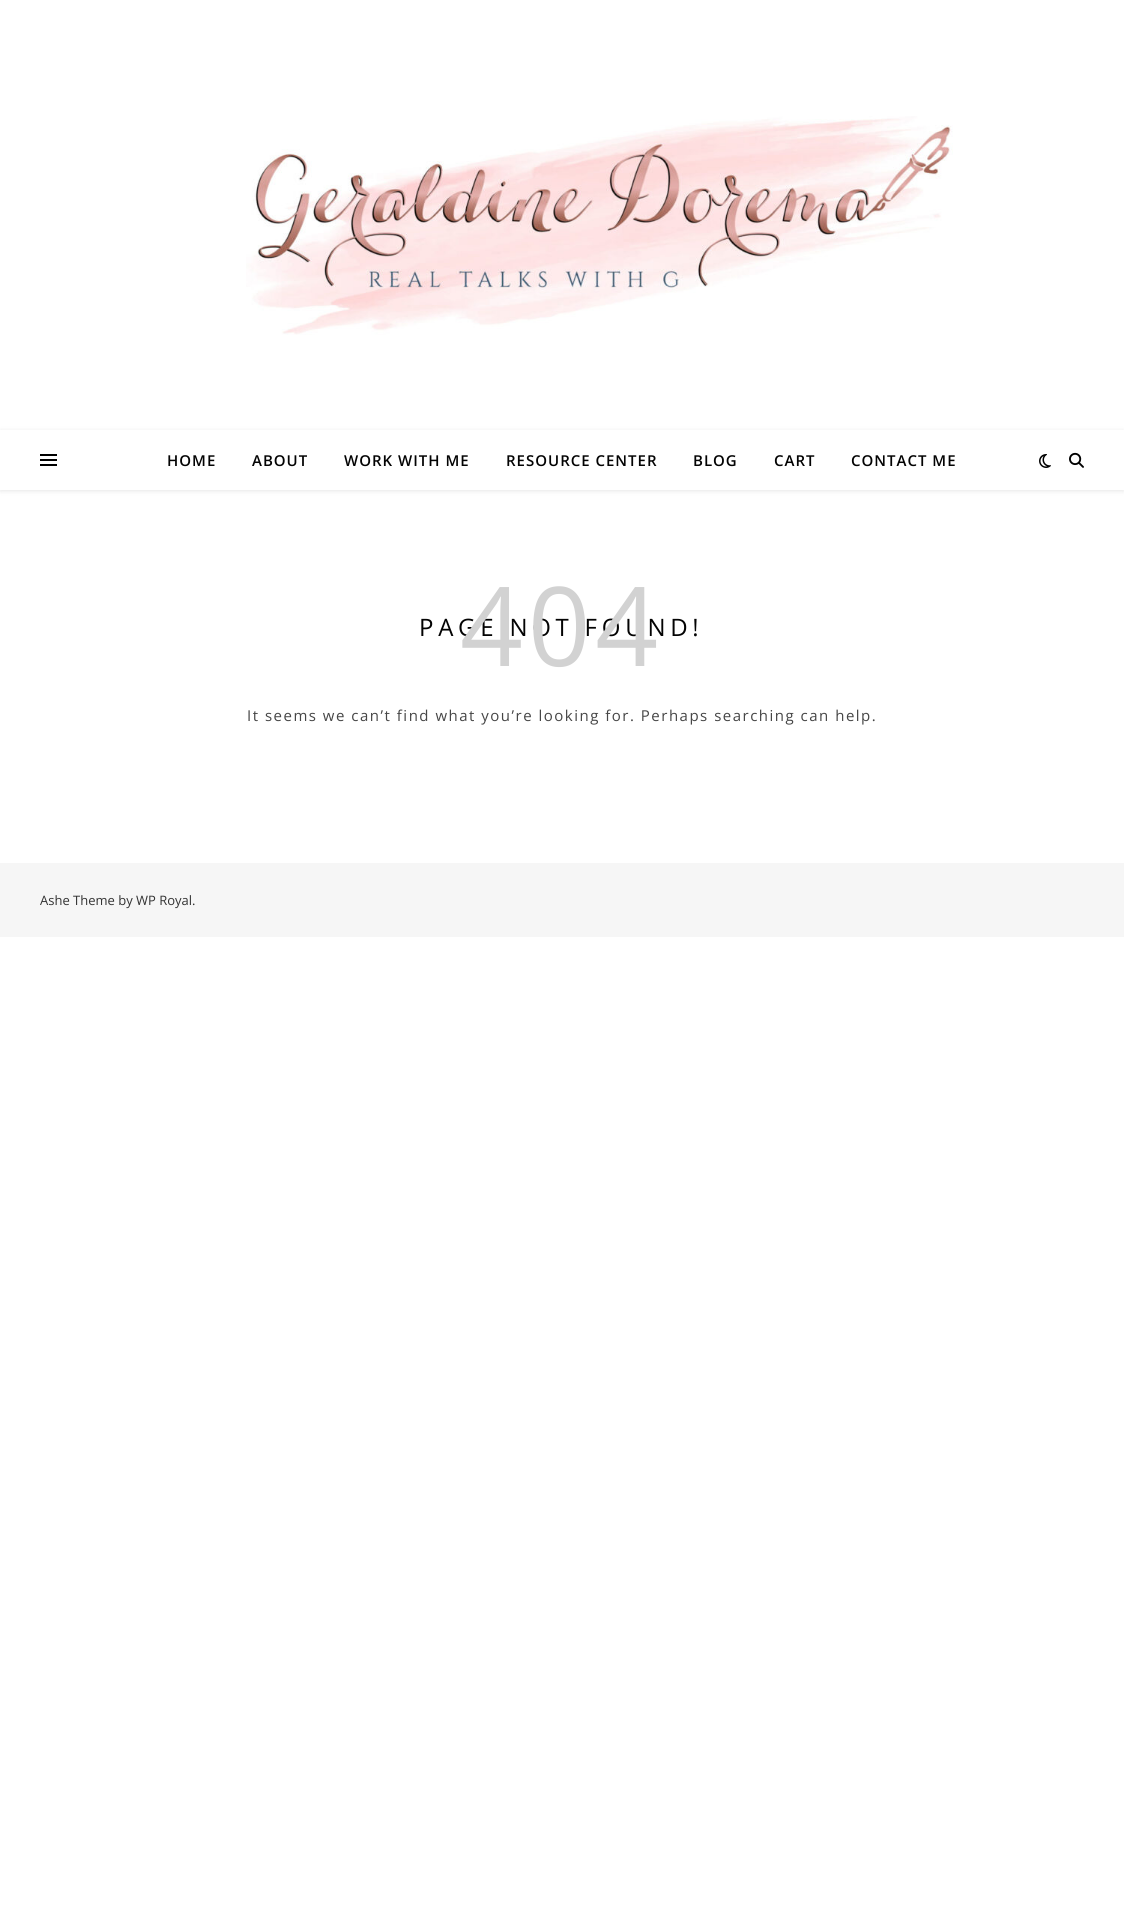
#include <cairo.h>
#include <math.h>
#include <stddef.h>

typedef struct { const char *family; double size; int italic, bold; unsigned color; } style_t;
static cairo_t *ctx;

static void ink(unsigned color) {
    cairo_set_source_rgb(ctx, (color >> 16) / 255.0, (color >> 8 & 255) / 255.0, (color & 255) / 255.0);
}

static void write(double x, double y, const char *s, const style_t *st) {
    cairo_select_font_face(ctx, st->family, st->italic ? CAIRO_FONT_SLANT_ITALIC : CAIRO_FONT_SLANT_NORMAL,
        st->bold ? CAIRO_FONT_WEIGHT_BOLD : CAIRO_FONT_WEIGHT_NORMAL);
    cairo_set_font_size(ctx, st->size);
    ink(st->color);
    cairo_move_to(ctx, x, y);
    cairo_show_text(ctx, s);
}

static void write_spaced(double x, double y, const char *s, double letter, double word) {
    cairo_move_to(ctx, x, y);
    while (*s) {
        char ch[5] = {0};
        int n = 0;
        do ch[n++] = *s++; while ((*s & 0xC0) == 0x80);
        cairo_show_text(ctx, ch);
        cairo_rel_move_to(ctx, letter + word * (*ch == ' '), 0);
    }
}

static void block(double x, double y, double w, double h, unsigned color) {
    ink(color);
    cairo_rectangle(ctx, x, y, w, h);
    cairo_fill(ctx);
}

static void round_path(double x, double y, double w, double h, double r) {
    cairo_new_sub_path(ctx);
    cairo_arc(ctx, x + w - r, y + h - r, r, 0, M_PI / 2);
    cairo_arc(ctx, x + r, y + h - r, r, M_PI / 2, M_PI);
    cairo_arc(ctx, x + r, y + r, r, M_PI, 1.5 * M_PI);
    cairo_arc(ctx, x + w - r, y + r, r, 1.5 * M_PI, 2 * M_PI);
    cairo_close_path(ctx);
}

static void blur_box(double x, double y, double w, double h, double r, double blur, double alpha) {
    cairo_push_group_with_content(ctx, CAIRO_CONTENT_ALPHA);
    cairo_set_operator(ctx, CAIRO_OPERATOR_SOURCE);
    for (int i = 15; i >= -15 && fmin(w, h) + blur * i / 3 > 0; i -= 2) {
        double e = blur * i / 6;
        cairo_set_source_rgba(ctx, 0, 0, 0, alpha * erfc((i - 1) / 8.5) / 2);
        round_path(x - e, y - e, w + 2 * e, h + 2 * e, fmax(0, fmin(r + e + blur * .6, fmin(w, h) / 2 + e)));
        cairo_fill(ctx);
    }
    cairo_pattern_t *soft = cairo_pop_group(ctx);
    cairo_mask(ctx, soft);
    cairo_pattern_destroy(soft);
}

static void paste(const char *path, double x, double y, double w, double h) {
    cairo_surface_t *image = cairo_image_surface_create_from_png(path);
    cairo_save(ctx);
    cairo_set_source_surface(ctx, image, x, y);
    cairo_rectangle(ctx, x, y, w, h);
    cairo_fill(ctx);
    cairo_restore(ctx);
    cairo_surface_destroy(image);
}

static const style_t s1 = {"Open Sans", 13, 0, 0, 0x333333};

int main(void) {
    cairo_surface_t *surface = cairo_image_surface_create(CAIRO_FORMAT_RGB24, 1124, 1923);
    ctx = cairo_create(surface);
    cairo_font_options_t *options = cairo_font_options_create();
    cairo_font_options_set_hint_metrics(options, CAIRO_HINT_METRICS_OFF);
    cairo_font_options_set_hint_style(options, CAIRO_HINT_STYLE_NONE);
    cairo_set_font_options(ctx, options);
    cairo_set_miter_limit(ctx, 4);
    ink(0xffffff);
    cairo_paint(ctx);
    paste("pic1.png", 246, 116, 707, 219);
    cairo_save(ctx);
    cairo_set_fill_rule(ctx, CAIRO_FILL_RULE_EVEN_ODD);
    cairo_new_path(ctx);
    cairo_move_to(ctx, 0, 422);
    cairo_line_to(ctx, 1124, 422);
    cairo_line_to(ctx, 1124, 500);
    cairo_line_to(ctx, 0, 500);
    cairo_close_path(ctx);
    cairo_move_to(ctx, 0, 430);
    cairo_line_to(ctx, 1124, 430);
    cairo_line_to(ctx, 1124, 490);
    cairo_line_to(ctx, 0, 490);
    cairo_close_path(ctx);
    cairo_clip(ctx);
    ink(0x000000);
    blur_box(0, 431, 1124, 60, 0, 2.5, 0.1);
    cairo_restore(ctx);
    block(40, 454, 17, 2, 0x000000);
    block(40, 459, 17, 2, 0x000000);
    block(40, 464, 17, 2, 0x000000);
    cairo_select_font_face(ctx, "Open Sans SemiBold", CAIRO_FONT_SLANT_NORMAL, CAIRO_FONT_WEIGHT_NORMAL);
    cairo_set_font_size(ctx, 15);
    ink(0x030303);
    write_spaced(167, 466, "HOME", 1, 0);
    write_spaced(252, 466, "ABOUT", 1, 0);
    write_spaced(344, 466, "WORK WITH ME", 1, 0);
    write_spaced(506, 466, "RESOURCE CENTER", 1, 0);
    write_spaced(693, 466, "BLOG", 1, 0);
    write_spaced(774, 466, "CART", 1, 0);
    write_spaced(851, 466, "CONTACT ME", 1, 0);
    paste("pic2.png", 1039, 454, 12, 14);
    paste("pic3.png", 1069, 452, 15, 16);
    cairo_select_font_face(ctx, "Open Sans", CAIRO_FONT_SLANT_NORMAL, CAIRO_FONT_WEIGHT_NORMAL);
    cairo_set_font_size(ctx, 24);
    write_spaced(419, 636, "PAGE NOT FOUND!", 4.75, 0);
    cairo_set_font_size(ctx, 110);
    ink(0xd2d2d2);
    write_spaced(460, 666, "404", 4.75, 0);
    cairo_set_font_size(ctx, 15);
    ink(0x464646);
    write_spaced(247, 721, "It seems we can’t find what you’re looking for. Perhaps searching can help.", 1.5, 0);
    block(0, 863, 1124, 74, 0xf6f6f6);
    write(40, 905, "Ashe Theme by WP Royal.", &s1);
    cairo_surface_write_to_png(surface, "screenshot.png");
    cairo_font_options_destroy(options);
    cairo_destroy(ctx);
    cairo_surface_destroy(surface);
    return 0;
}
